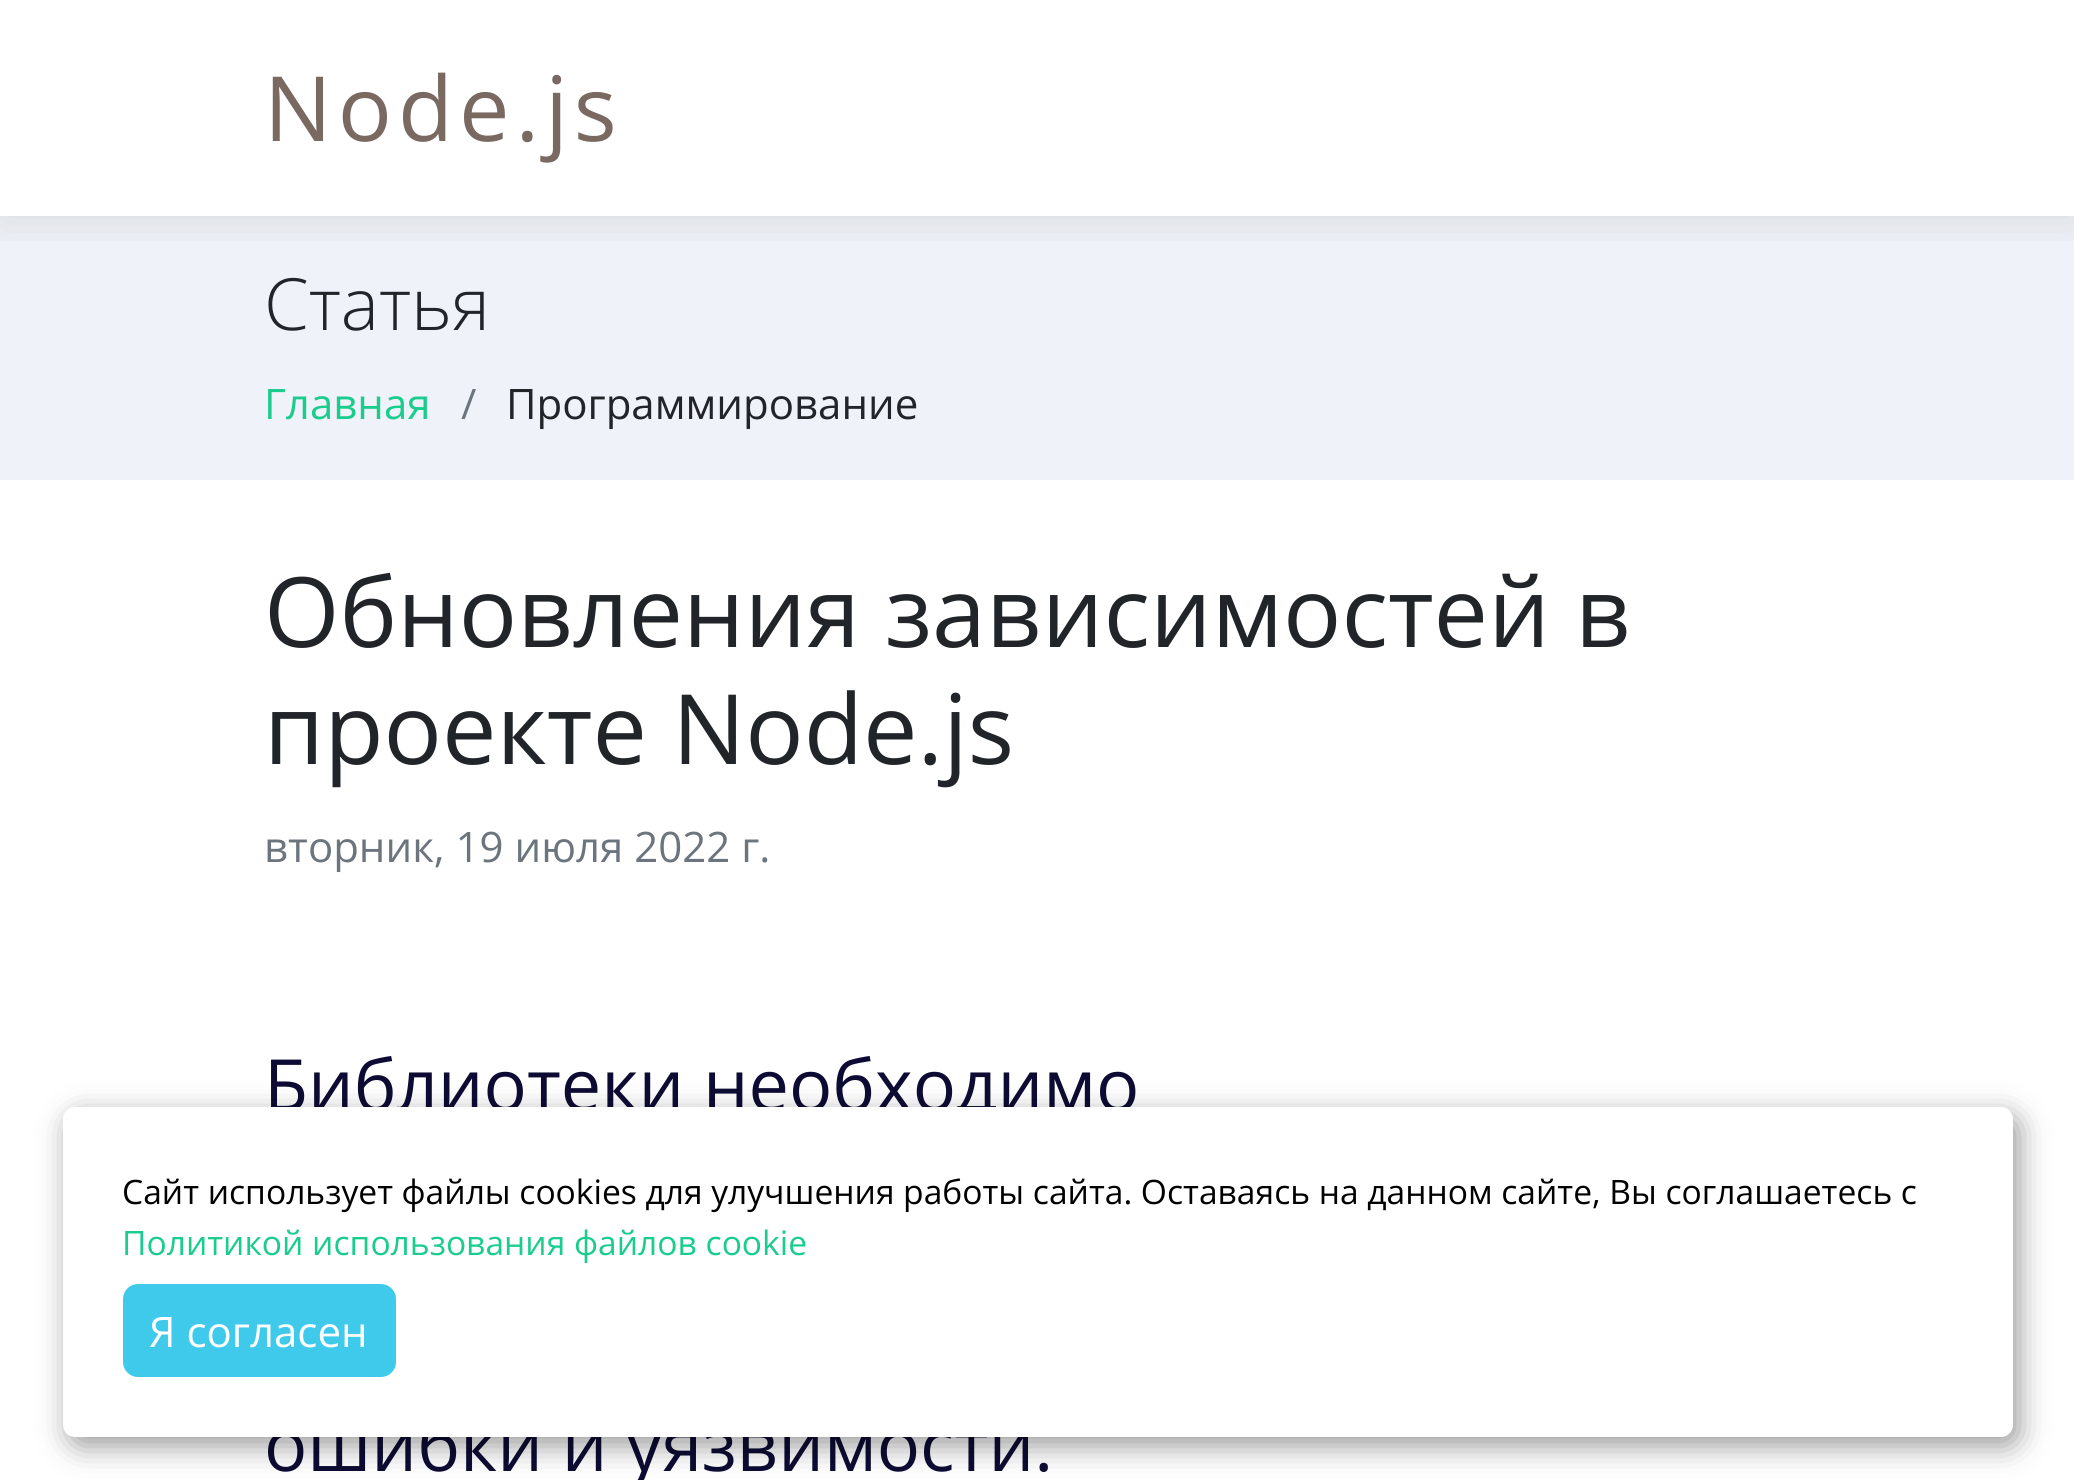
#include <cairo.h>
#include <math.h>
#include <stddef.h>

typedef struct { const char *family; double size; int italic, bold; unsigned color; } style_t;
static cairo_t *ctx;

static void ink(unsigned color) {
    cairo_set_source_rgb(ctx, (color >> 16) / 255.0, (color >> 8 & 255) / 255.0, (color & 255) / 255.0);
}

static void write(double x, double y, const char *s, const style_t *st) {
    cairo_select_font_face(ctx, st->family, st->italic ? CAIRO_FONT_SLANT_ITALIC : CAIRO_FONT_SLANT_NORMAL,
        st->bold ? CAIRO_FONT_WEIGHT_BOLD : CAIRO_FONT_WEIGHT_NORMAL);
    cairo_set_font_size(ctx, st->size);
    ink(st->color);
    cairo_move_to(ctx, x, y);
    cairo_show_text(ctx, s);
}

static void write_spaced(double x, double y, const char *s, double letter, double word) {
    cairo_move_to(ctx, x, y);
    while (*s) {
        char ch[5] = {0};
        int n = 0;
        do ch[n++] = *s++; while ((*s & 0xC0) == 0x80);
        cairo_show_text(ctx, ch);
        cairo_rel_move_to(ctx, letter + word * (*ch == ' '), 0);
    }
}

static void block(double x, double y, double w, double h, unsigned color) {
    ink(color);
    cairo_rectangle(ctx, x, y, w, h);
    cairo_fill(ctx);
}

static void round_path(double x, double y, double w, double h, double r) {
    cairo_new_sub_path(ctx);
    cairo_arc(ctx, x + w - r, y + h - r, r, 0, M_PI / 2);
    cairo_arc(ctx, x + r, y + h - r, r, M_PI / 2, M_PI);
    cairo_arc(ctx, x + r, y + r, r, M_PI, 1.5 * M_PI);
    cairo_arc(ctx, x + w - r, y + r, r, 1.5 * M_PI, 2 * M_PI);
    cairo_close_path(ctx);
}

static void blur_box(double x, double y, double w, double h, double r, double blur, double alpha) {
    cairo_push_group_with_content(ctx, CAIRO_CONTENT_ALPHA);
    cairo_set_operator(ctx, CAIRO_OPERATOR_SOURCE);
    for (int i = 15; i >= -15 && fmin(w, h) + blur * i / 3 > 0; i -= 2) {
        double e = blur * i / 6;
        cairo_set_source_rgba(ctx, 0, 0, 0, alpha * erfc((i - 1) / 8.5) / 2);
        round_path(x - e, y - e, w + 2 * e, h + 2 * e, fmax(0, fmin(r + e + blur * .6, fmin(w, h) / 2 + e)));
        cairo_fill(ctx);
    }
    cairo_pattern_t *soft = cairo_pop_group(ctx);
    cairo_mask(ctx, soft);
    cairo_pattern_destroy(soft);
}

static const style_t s1 = {"Open Sans Light", 72, 0, 0, 0x212529};
static const style_t s2 = {"Open Sans", 42, 0, 0, 0x1acc8d};
static const style_t s3 = {"Open Sans", 42, 0, 0, 0x6c757d};
static const style_t s4 = {"Open Sans", 42, 0, 0, 0x212529};
static const style_t s5 = {"Open Sans", 97.1, 0, 0, 0x212529};
static const style_t s6 = {"Open Sans", 72, 0, 0, 0x0d0b33};
static const style_t s7 = {"Open Sans", 33.6, 0, 0, 0x1acc8d};
static const style_t s8 = {"Open Sans", 42, 0, 0, 0xffffff};

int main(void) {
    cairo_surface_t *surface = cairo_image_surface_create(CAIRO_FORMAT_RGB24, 2074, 1480);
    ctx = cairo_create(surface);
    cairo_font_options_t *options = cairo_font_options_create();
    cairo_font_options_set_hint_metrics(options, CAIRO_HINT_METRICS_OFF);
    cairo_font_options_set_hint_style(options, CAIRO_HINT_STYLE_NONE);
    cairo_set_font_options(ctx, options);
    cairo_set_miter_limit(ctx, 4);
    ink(0xffffff);
    cairo_paint(ctx);
    block(0, 216, 2074, 264, 0xeff2f8);
    cairo_save(ctx);
    cairo_rectangle(ctx, 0, 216, 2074, 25);
    cairo_clip(ctx);
    ink(0x000000);
    blur_box(0, 6, 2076, 216, 0, 22.5, 0.1);
    cairo_restore(ctx);
    cairo_select_font_face(ctx, "Open Sans", CAIRO_FONT_SLANT_NORMAL, CAIRO_FONT_WEIGHT_NORMAL);
    cairo_set_font_size(ctx, 90);
    ink(0x7a6960);
    write_spaced(264, 141, "Node.js", 6, 0);
    write(264, 330, "Статья", &s1);
    write(264, 419, "Главная", &s2);
    write(461, 419, "/", &s3);
    write(506, 419, "Программирование", &s4);
    write(264, 647, "Обновления зависимостей в", &s5);
    write(264, 764, "проекте Node.js", &s5);
    write(264, 862, "вторник, 19 июля 2022 г.", &s3);
    write(264, 1111, "Библиотеки необходимо", &s6);
    write(264, 1471, "ошибки и уязвимости.", &s6);
    ink(0x000000);
    blur_box(69, 1116, 1950, 330, 12, 15, 0.4);
    ink(0xffffff);
    round_path(63, 1107, 1950, 330, 12);
    cairo_fill(ctx);
    cairo_set_font_size(ctx, 33.6);
    ink(0x000000);
    write_spaced(122, 1204, "Сайт использует файлы cookies для улучшения работы сайта. Оставаясь на данном сайте, Вы соглашаетесь с", 0, -0.1);
    write(122, 1255, "Политикой использования файлов cookie", &s7);
    ink(0x3fcaec);
    round_path(124.5, 1285.5, 270, 90, 13.5);
    cairo_fill_preserve(ctx);
    cairo_set_line_width(ctx, 3);
    cairo_stroke(ctx);
    write(149, 1347, "Я согласен", &s8);
    cairo_surface_write_to_png(surface, "screenshot.png");
    cairo_font_options_destroy(options);
    cairo_destroy(ctx);
    cairo_surface_destroy(surface);
    return 0;
}
